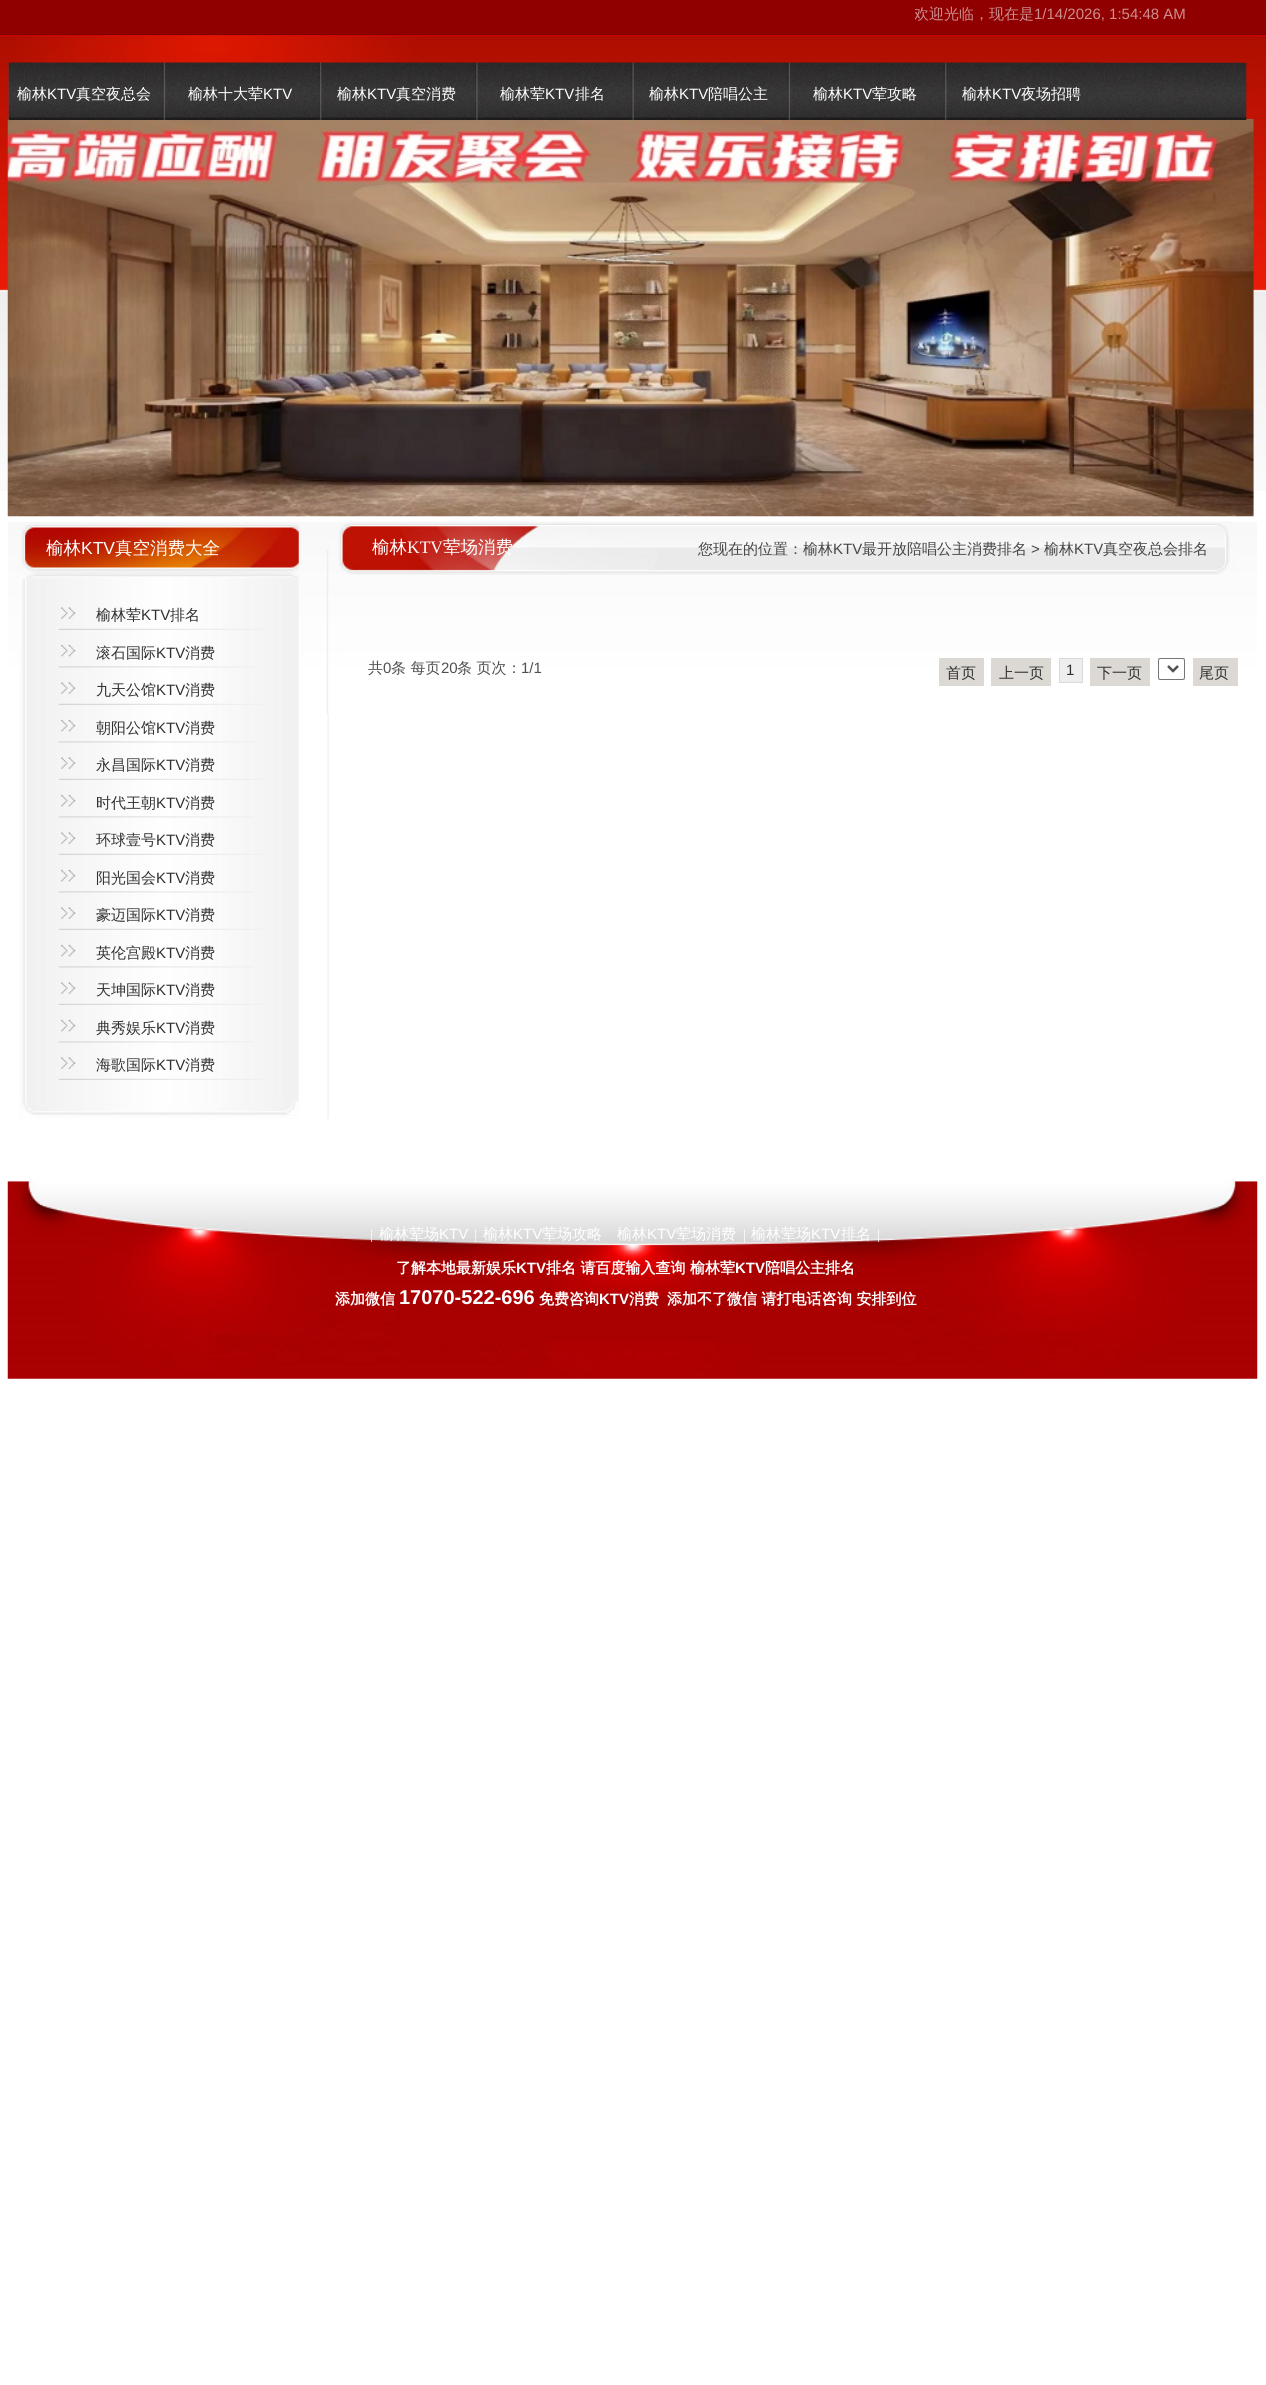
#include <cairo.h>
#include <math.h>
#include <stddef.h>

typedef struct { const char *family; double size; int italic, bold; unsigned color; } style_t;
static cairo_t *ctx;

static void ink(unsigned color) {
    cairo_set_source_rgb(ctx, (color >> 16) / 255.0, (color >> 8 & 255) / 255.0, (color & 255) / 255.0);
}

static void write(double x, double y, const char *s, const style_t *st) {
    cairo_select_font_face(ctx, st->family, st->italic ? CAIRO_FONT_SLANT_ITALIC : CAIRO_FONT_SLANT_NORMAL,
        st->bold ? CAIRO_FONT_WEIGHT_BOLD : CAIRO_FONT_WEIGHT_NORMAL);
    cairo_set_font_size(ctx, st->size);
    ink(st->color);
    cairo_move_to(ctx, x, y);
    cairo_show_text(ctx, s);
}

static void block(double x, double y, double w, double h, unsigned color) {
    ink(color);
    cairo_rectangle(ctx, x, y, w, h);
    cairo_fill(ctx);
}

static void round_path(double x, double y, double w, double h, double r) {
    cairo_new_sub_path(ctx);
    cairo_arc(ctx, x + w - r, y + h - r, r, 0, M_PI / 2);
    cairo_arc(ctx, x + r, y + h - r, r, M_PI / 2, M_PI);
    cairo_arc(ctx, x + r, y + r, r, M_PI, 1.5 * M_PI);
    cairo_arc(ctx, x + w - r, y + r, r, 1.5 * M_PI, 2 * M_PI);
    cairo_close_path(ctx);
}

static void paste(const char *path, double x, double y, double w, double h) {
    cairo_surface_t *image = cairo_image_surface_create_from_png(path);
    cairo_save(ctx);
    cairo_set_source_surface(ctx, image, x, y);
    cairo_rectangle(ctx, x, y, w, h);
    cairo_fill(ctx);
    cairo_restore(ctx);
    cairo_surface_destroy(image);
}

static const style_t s1 = {"WenQuanYi Zen Hei Medium", 15, 0, 0, 0xce8e8e};
static const style_t s2 = {"Liberation Sans", 15, 0, 0, 0xce8e8e};
static const style_t s3 = {"WenQuanYi Zen Hei Medium", 15, 0, 0, 0xffffff};
static const style_t s4 = {"Liberation Sans", 15, 0, 0, 0xffffff};
static const style_t s5 = {"WenQuanYi Zen Hei Medium", 17.5, 0, 0, 0xffffff};
static const style_t s6 = {"Liberation Sans", 17.5, 0, 0, 0xffffff};
static const style_t s7 = {"WenQuanYi Zen Hei Medium", 15, 0, 0, 0x303030};
static const style_t s8 = {"Liberation Sans", 15, 0, 0, 0x303030};
static const style_t s9 = {"Liberation Serif", 17.5, 0, 0, 0xffffff};
static const style_t s10 = {"WenQuanYi Zen Hei Medium", 15, 0, 0, 0x464646};
static const style_t s11 = {"Liberation Sans", 15, 0, 0, 0x464646};
static const style_t s12 = {"WenQuanYi Zen Hei Medium", 15, 0, 0, 0x505050};
static const style_t s13 = {"Liberation Sans", 15, 0, 0, 0x505050};
static const style_t s14 = {"Liberation Serif", 14, 0, 0, 0xffffff};
static const style_t s15 = {"WenQuanYi Zen Hei", 15, 0, 1, 0xffffff};
static const style_t s16 = {"Liberation Sans", 15, 0, 1, 0xffffff};
static const style_t s17 = {"Liberation Sans", 20, 0, 1, 0xffffff};

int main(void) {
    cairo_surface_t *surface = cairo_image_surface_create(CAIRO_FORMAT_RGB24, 1266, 2385);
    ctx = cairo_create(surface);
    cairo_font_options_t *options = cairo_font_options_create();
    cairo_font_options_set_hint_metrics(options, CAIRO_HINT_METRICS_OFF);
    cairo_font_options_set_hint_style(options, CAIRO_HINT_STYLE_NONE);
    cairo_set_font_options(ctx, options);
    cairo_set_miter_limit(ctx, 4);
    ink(0xffffff);
    cairo_paint(ctx);
    paste("pic1.png", 0, 0, 1266, 491);
    cairo_save(ctx);
    cairo_rectangle(ctx, 915, 4, 343, 24);
    cairo_clip(ctx);
    write(914, 19, "欢迎光临，现在是", &s1);
    cairo_restore(ctx);
    write(1034, 19, "1/14/2026, 1:54:48 AM", &s2);
    paste("pic2.png", 8, 35, 1249, 93);
    paste("pic11.png", 7, 118, 1247, 399);
    paste("pic3.png", 8, 62, 1239, 58);
    paste("pic4.png", 8, 62, 155, 58);
    write(17, 99, "榆林", &s3);
    write(47, 99, "KTV", &s4);
    write(76, 99, "真空夜总会", &s3);
    paste("pic5.png", 162, 62, 157, 58);
    write(188, 99, "榆林十大荤", &s3);
    write(263, 99, "KTV", &s4);
    paste("pic6.png", 318, 62, 157, 58);
    write(337, 99, "榆林", &s3);
    write(367, 99, "KTV", &s4);
    write(396, 99, "真空消费", &s3);
    paste("pic7.png", 475, 62, 157, 58);
    write(500, 99, "榆林荤", &s3);
    write(545, 99, "KTV", &s4);
    write(575, 99, "排名", &s3);
    paste("pic8.png", 631, 62, 157, 58);
    write(649, 99, "榆林", &s3);
    write(679, 99, "KTV", &s4);
    write(708, 99, "陪唱公主", &s3);
    paste("pic9.png", 787, 62, 157, 58);
    write(813, 99, "榆林", &s3);
    write(843, 99, "KTV", &s4);
    write(872, 99, "荤攻略", &s3);
    paste("pic10.png", 943, 62, 157, 58);
    write(962, 99, "榆林", &s3);
    write(992, 99, "KTV", &s4);
    write(1021, 99, "夜场招聘", &s3);
    paste("pic12.png", 327, 521, 2, 598);
    paste("pic13.png", 8, 522, 1249, 192);
    paste("pic14.png", 19, 522, 280, 597);
    paste("pic15.png", 19, 522, 280, 57);
    write(46, 554, "榆林", &s5);
    write(81, 554, "KTV", &s6);
    write(115, 554, "真空消费大全", &s5);
    paste("pic16.png", 58, 607, 205, 23);
    write(96, 620, "榆林荤", &s7);
    write(141, 620, "KTV", &s8);
    write(170, 620, "排名", &s7);
    paste("pic17.png", 58, 644, 195, 24);
    write(96, 658, "滚石国际", &s7);
    write(156, 658, "KTV", &s8);
    write(185, 658, "消费", &s7);
    paste("pic16.png", 58, 682, 205, 23);
    write(96, 695, "九天公馆", &s7);
    write(156, 695, "KTV", &s8);
    write(185, 695, "消费", &s7);
    paste("pic17.png", 58, 719, 195, 24);
    write(96, 733, "朝阳公馆", &s7);
    write(156, 733, "KTV", &s8);
    write(185, 733, "消费", &s7);
    paste("pic16.png", 58, 757, 205, 23);
    write(96, 770, "永昌国际", &s7);
    write(156, 770, "KTV", &s8);
    write(185, 770, "消费", &s7);
    paste("pic17.png", 58, 794, 195, 24);
    write(96, 808, "时代王朝", &s7);
    write(156, 808, "KTV", &s8);
    write(185, 808, "消费", &s7);
    paste("pic16.png", 58, 832, 205, 23);
    write(96, 845, "环球壹号", &s7);
    write(156, 845, "KTV", &s8);
    write(185, 845, "消费", &s7);
    paste("pic17.png", 58, 869, 195, 24);
    write(96, 883, "阳光国会", &s7);
    write(156, 883, "KTV", &s8);
    write(185, 883, "消费", &s7);
    paste("pic16.png", 58, 907, 205, 23);
    write(96, 920, "豪迈国际", &s7);
    write(156, 920, "KTV", &s8);
    write(185, 920, "消费", &s7);
    paste("pic17.png", 58, 944, 195, 24);
    write(96, 958, "英伦宫殿", &s7);
    write(156, 958, "KTV", &s8);
    write(185, 958, "消费", &s7);
    paste("pic16.png", 58, 982, 205, 23);
    write(96, 995, "天坤国际", &s7);
    write(156, 995, "KTV", &s8);
    write(185, 995, "消费", &s7);
    paste("pic17.png", 58, 1019, 195, 24);
    write(96, 1033, "典秀娱乐", &s7);
    write(156, 1033, "KTV", &s8);
    write(185, 1033, "消费", &s7);
    paste("pic16.png", 58, 1057, 205, 23);
    write(96, 1070, "海歌国际", &s7);
    write(156, 1070, "KTV", &s8);
    write(185, 1070, "消费", &s7);
    paste("pic19.png", 21, 1103, 278, 16);
    paste("pic18.png", 286, 1101, 13, 14);
    paste("pic20.png", 338, 521, 896, 54);
    write(372, 553, "榆林", &s5);
    write(407, 553, "KTV", &s9);
    write(443, 553, "荤场消费", &s5);
    write(698, 554, "您现在的位置：榆林", &s10);
    write(833, 554, "KTV", &s11);
    write(862, 554, "最开放陪唱公主消费排名", &s10);
    write(1031, 554, ">", &s11);
    write(1044, 554, "榆林", &s10);
    write(1074, 554, "KTV", &s11);
    write(1103, 554, "真空夜总会排名", &s10);
    paste("pic21.png", 1217, 523, 17, 52);
    write(368, 673, "共", &s12);
    write(383, 673, "0", &s13);
    write(391, 673, "条 每页", &s12);
    write(441, 673, "20", &s13);
    write(457, 673, "条 页次：", &s12);
    write(521, 673, "1/1", &s13);
    block(939, 658, 45, 28, 0xdcd9d4);
    write(946, 678, "首页", &s7);
    block(991, 658, 60, 28, 0xdcd9d4);
    write(999, 678, "上一页", &s7);
    ink(0xeeeeee);
    cairo_rectangle(ctx, 1059.5, 658.5, 23, 24);
    cairo_fill_preserve(ctx);
    ink(0xdcd9d4);
    cairo_set_line_width(ctx, 1);
    cairo_stroke(ctx);
    write(1066, 675, "1", &s8);
    block(1090, 658, 60, 28, 0xdcd9d4);
    write(1097, 678, "下一页", &s7);
    block(1158, 658, 27, 22, 0xdcd9d4);
    ink(0xffffff);
    round_path(1158.5, 658.5, 26, 21, 2);
    cairo_fill_preserve(ctx);
    ink(0x767676);
    cairo_stroke(ctx);
    cairo_new_path(ctx);
    cairo_move_to(ctx, 1168, 666);
    cairo_line_to(ctx, 1173, 671);
    cairo_line_to(ctx, 1178, 666);
    ink(0x505050);
    cairo_set_line_width(ctx, 2.5);
    cairo_stroke(ctx);
    block(1193, 658, 45, 28, 0xdcd9d4);
    write(1199, 678, "尾页", &s7);
    paste("pic22.png", 7, 1181, 1251, 198);
    write(370, 1239, "|", &s14);
    write(379, 1239, "榆林荤场", &s3);
    write(439, 1239, "KTV", &s4);
    write(474, 1239, "|", &s14);
    write(483, 1239, "榆林", &s3);
    write(513, 1239, "KTV", &s4);
    write(542, 1239, "荤场攻略", &s3);
    write(617, 1239, "榆林", &s3);
    write(647, 1239, "KTV", &s4);
    write(676, 1239, "荤场消费", &s3);
    write(743, 1239, "|", &s14);
    write(751, 1239, "榆林荤场", &s3);
    write(811, 1239, "KTV", &s4);
    write(841, 1239, "排名", &s3);
    write(877, 1239, "|", &s14);
    write(396, 1273, "了解本地最新娱乐", &s15);
    write(516, 1273, "KTV", &s16);
    write(546, 1273, "排名 请百度输入查询 榆林荤", &s15);
    write(735, 1273, "KTV", &s16);
    write(765, 1273, "陪唱公主排名", &s15);
    write(335, 1304, "添加微信", &s15);
    write(399, 1304, "17070-522-696", &s17);
    write(539, 1304, "免费咨询", &s15);
    write(599, 1304, "KTV", &s16);
    write(629, 1304, "消费", &s15);
    cairo_save(ctx);
    cairo_rectangle(ctx, 8, 1253, 1237, 53);
    cairo_clip(ctx);
    write(667, 1304, "添加不了微信 请打电话咨", &s15);
    cairo_restore(ctx);
    write(837, 1304, "询 安排到位", &s15);
    cairo_surface_write_to_png(surface, "screenshot.png");
    cairo_font_options_destroy(options);
    cairo_destroy(ctx);
    cairo_surface_destroy(surface);
    return 0;
}
